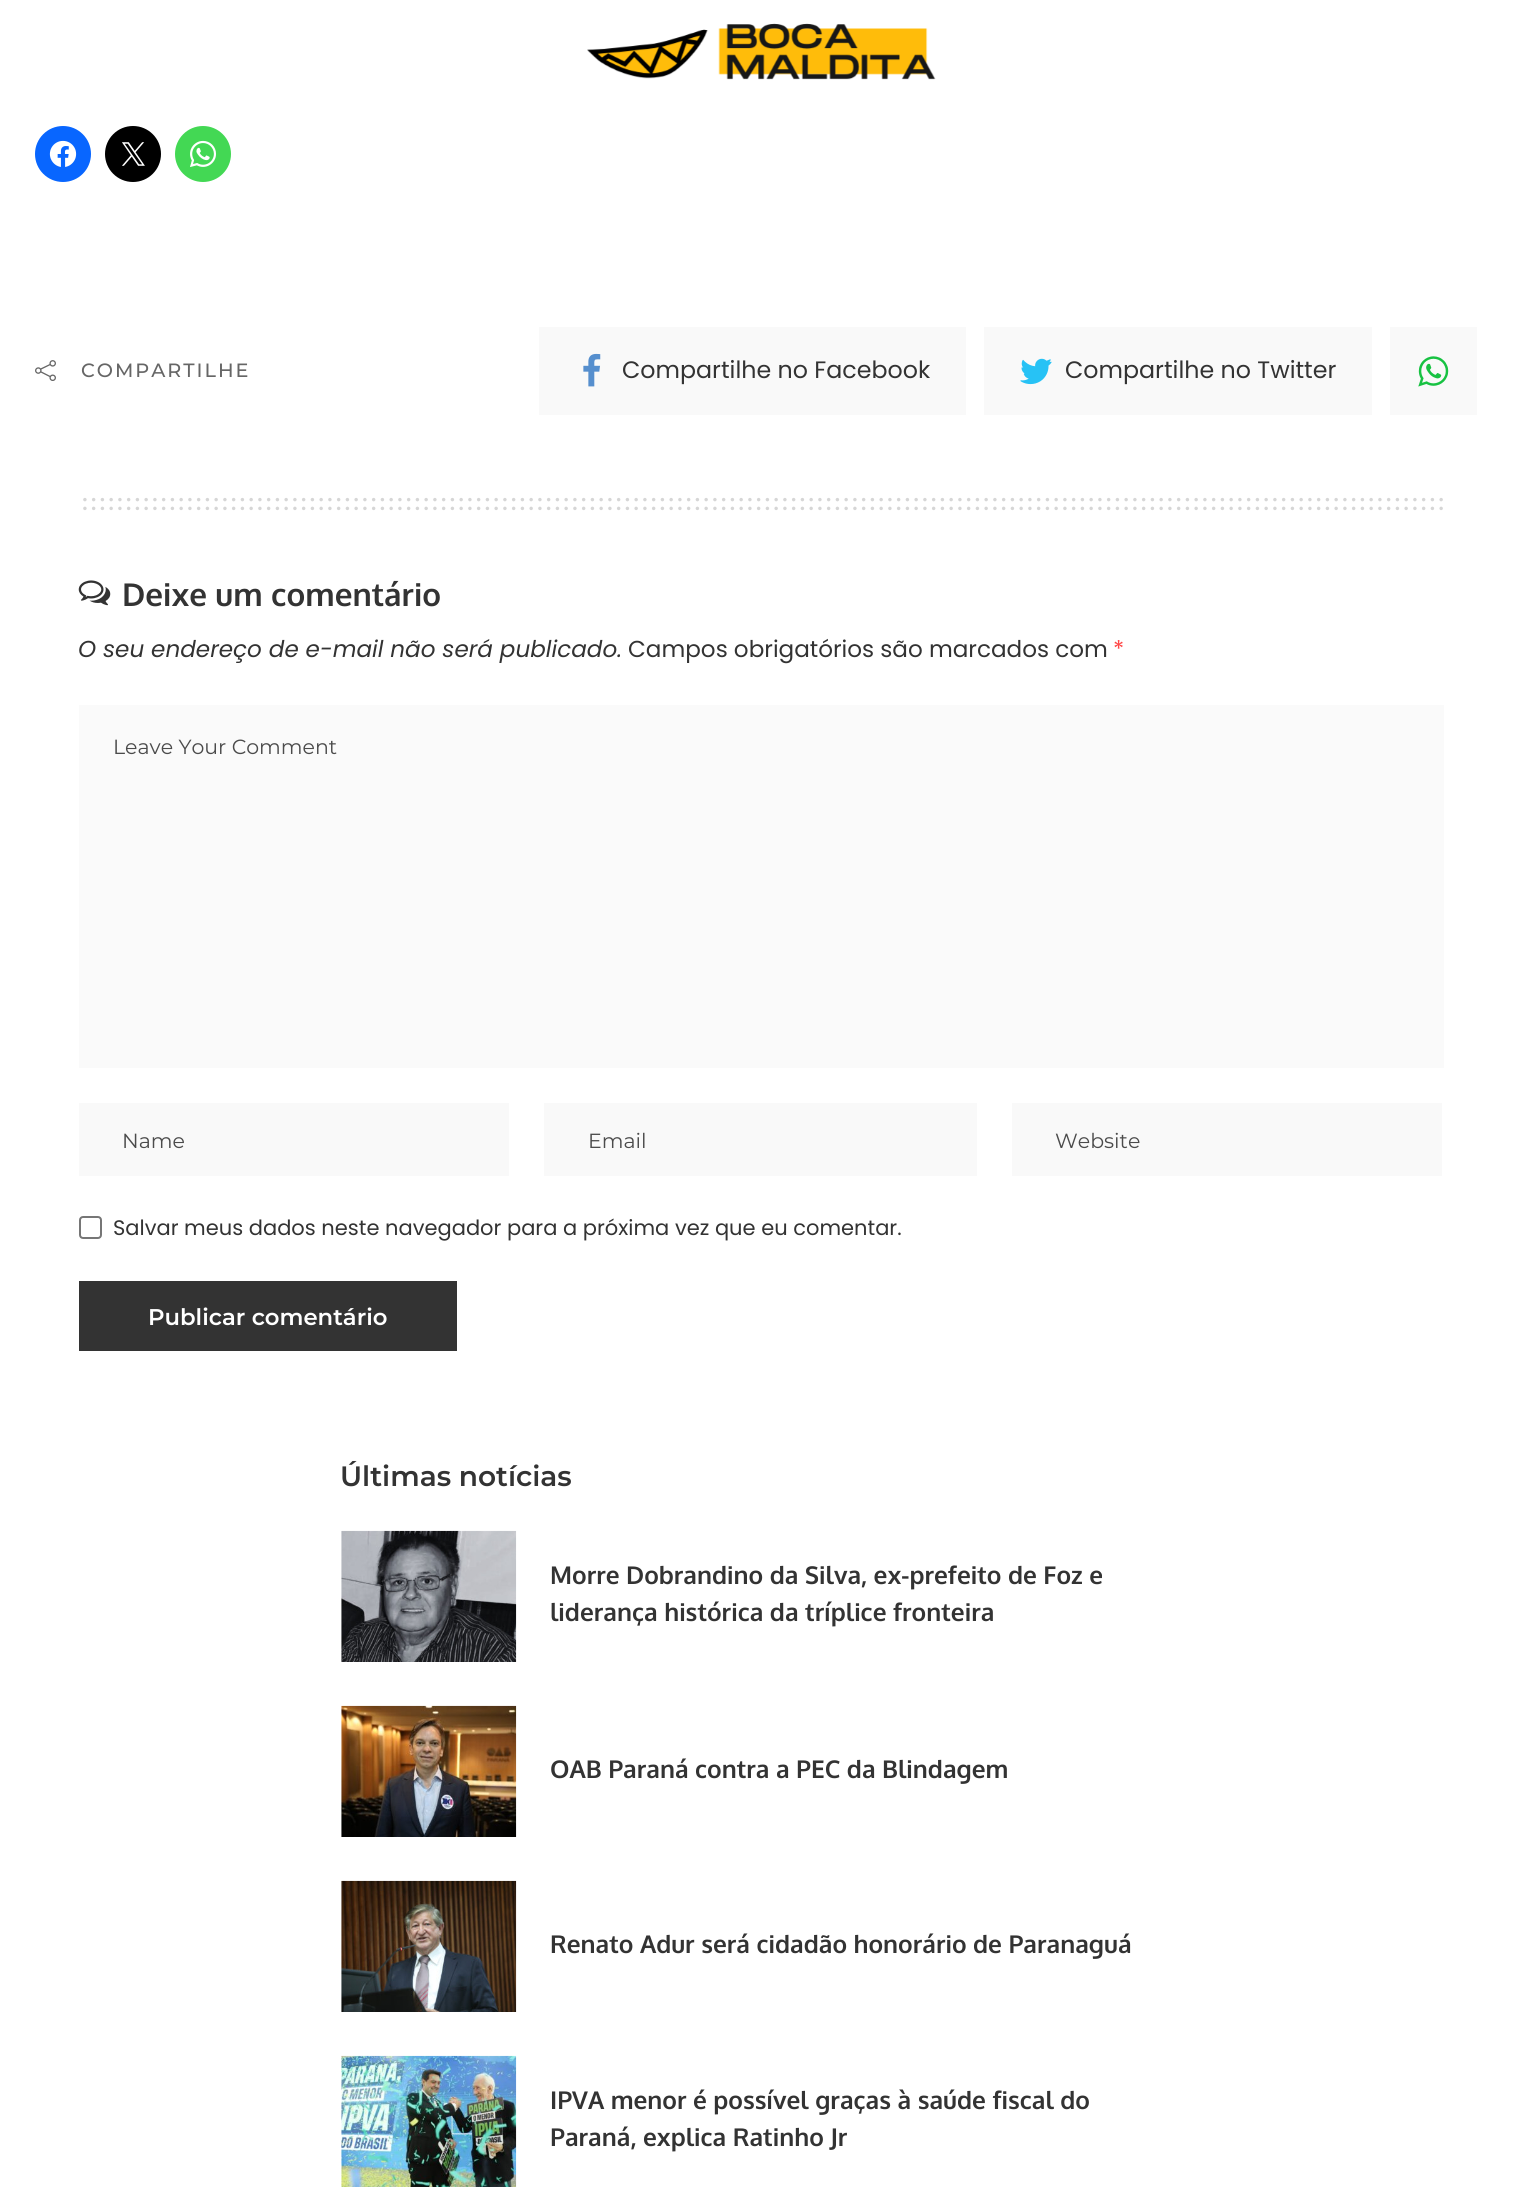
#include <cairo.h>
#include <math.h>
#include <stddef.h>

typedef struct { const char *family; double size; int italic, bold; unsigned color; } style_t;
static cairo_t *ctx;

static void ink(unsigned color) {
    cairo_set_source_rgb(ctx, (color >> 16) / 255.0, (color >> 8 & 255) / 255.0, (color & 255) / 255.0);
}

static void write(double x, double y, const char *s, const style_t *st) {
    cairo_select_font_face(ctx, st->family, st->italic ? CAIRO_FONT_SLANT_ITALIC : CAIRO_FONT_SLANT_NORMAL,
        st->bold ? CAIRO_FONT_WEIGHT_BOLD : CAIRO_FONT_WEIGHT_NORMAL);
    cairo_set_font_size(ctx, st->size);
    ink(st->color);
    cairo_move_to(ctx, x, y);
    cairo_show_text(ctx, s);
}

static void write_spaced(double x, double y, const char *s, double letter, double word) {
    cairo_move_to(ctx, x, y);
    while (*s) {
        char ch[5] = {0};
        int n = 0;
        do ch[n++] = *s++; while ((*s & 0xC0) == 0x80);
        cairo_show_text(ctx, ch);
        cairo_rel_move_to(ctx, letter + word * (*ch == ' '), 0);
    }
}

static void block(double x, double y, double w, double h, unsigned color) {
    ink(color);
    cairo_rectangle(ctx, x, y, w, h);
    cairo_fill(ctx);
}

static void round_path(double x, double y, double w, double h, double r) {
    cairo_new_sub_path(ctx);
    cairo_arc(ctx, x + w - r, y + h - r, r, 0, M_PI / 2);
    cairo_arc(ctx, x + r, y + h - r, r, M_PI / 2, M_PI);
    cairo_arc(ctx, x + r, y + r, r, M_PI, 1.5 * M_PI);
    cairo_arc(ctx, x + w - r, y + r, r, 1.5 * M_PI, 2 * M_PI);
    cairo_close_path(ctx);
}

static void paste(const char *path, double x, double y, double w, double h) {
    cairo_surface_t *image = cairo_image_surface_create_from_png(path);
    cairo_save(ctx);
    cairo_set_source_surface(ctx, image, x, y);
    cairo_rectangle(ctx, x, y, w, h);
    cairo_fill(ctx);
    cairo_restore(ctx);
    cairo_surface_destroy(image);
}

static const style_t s1 = {"Poppins", 23.75, 0, 0, 0x333333};
static const style_t s2 = {"Oxygen", 31.5, 0, 1, 0x333333};
static const style_t s3 = {"Poppins", 23.1, 1, 0, 0x333333};
static const style_t s4 = {"Poppins", 23.1, 0, 0, 0x333333};
static const style_t s5 = {"Poppins", 23.1, 0, 0, 0xff4545};
static const style_t s6 = {"Montserrat", 20.5, 0, 0, 0x4b4b4b};
static const style_t s7 = {"Poppins", 21, 0, 0, 0x333333};
static const style_t s8 = {"Montserrat SemiBold", 22.75, 0, 0, 0xffffff};
static const style_t s9 = {"Montserrat SemiBold", 28, 0, 0, 0x333333};
static const style_t s10 = {"Oxygen", 24.5, 0, 1, 0x333333};

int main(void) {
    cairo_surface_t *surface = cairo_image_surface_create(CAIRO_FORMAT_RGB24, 1520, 2197);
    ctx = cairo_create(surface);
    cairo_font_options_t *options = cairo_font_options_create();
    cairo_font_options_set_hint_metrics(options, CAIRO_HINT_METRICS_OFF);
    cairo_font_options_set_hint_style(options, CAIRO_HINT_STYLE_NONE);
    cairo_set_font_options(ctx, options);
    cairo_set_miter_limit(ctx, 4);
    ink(0xffffff);
    cairo_paint(ctx);
    paste("pic1.png", 587, 23, 349, 57);
    ink(0x0866ff);
    cairo_arc(ctx, 63, 154, 28, 0, 2 * M_PI);
    cairo_fill(ctx);
    paste("pic2.png", 49, 140, 28, 27);
    ink(0x000000);
    cairo_arc(ctx, 133, 154, 28, 0, 2 * M_PI);
    cairo_fill(ctx);
    paste("pic3.png", 122, 142, 23, 24);
    ink(0x43d854);
    cairo_arc(ctx, 203, 154, 28, 0, 2 * M_PI);
    cairo_fill(ctx);
    paste("pic4.png", 190, 140, 26, 27);
    paste("pic5.png", 35, 360, 21, 21);
    cairo_select_font_face(ctx, "Montserrat Medium", CAIRO_FONT_SLANT_NORMAL, CAIRO_FONT_WEIGHT_NORMAL);
    cairo_set_font_size(ctx, 19.25);
    ink(0x666666);
    write_spaced(81, 377, "COMPARTILHE", 2, 0);
    block(539, 327, 427, 88, 0xf9f9f9);
    paste("pic6.png", 583, 353, 18, 34);
    write(622, 378, "Compartilhe no Facebook", &s1);
    block(984, 327, 388, 88, 0xf9f9f9);
    paste("pic7.png", 1020, 358, 32, 27);
    write(1065, 378, "Compartilhe no Twitter", &s1);
    block(1390, 327, 87, 88, 0xf9f9f9);
    paste("pic8.png", 1418, 356, 31, 31);
    cairo_new_path(ctx);
    cairo_move_to(ctx, 84.9, 499.6);
    cairo_line_to(ctx, 1441.5, 499.6);
    ink(0xd6d6d6);
    cairo_set_line_width(ctx, 3.5);
    cairo_set_line_cap(ctx, CAIRO_LINE_CAP_ROUND);
    cairo_set_dash(ctx, (double[]){0, 8.75}, 2, 0);
    cairo_stroke(ctx);
    cairo_new_path(ctx);
    cairo_move_to(ctx, 84.9, 508.4);
    cairo_line_to(ctx, 1441.5, 508.4);
    cairo_stroke(ctx);
    paste("pic9.png", 78, 580, 33, 26);
    write(122, 606, "Deixe um comentário", &s2);
    write(78, 657, "O seu endereço de e-mail não será publicado.", &s3);
    write(628, 657, "Campos obrigatórios são marcados com", &s4);
    write(1113, 657, "*", &s5);
    block(79, 705, 1365, 363, 0xfafafa);
    write(113, 754, "Leave Your Comment", &s6);
    block(79, 1103, 430, 73, 0xf9f9f9);
    write(122, 1148, "Name", &s6);
    block(544, 1103, 433, 73, 0xf9f9f9);
    write(588, 1148, "Email", &s6);
    block(1012, 1103, 430, 73, 0xf9f9f9);
    write(1055, 1148, "Website", &s6);
    round_path(80, 1217, 21, 21, 3);
    ink(0x767676);
    cairo_set_line_width(ctx, 2);
    cairo_set_line_cap(ctx, CAIRO_LINE_CAP_BUTT);
    cairo_set_dash(ctx, NULL, 0, 0);
    cairo_stroke(ctx);
    write(113, 1235, "Salvar meus dados neste navegador para a próxima vez que eu comentar.", &s7);
    block(79, 1281, 378, 70, 0x333333);
    write(148, 1325, "Publicar comentário", &s8);
    write(340, 1486, "Últimas notícias", &s9);
    paste("pic10.png", 341, 1530, 176, 132);
    write(550, 1584, "Morre Dobrandino da Silva, ex-prefeito de Foz e", &s10);
    write(550, 1621, "liderança histórica da tríplice fronteira", &s10);
    paste("pic11.png", 341, 1705, 176, 132);
    write(550, 1778, "OAB Paraná contra a PEC da Blindagem", &s10);
    paste("pic12.png", 341, 1880, 176, 132);
    write(550, 1953, "Renato Adur será cidadão honorário de Paranaguá", &s10);
    paste("pic13.png", 341, 2055, 176, 132);
    write(550, 2109, "IPVA menor é possível graças à saúde fiscal do", &s10);
    write(550, 2146, "Paraná, explica Ratinho Jr", &s10);
    cairo_surface_write_to_png(surface, "screenshot.png");
    cairo_font_options_destroy(options);
    cairo_destroy(ctx);
    cairo_surface_destroy(surface);
    return 0;
}
